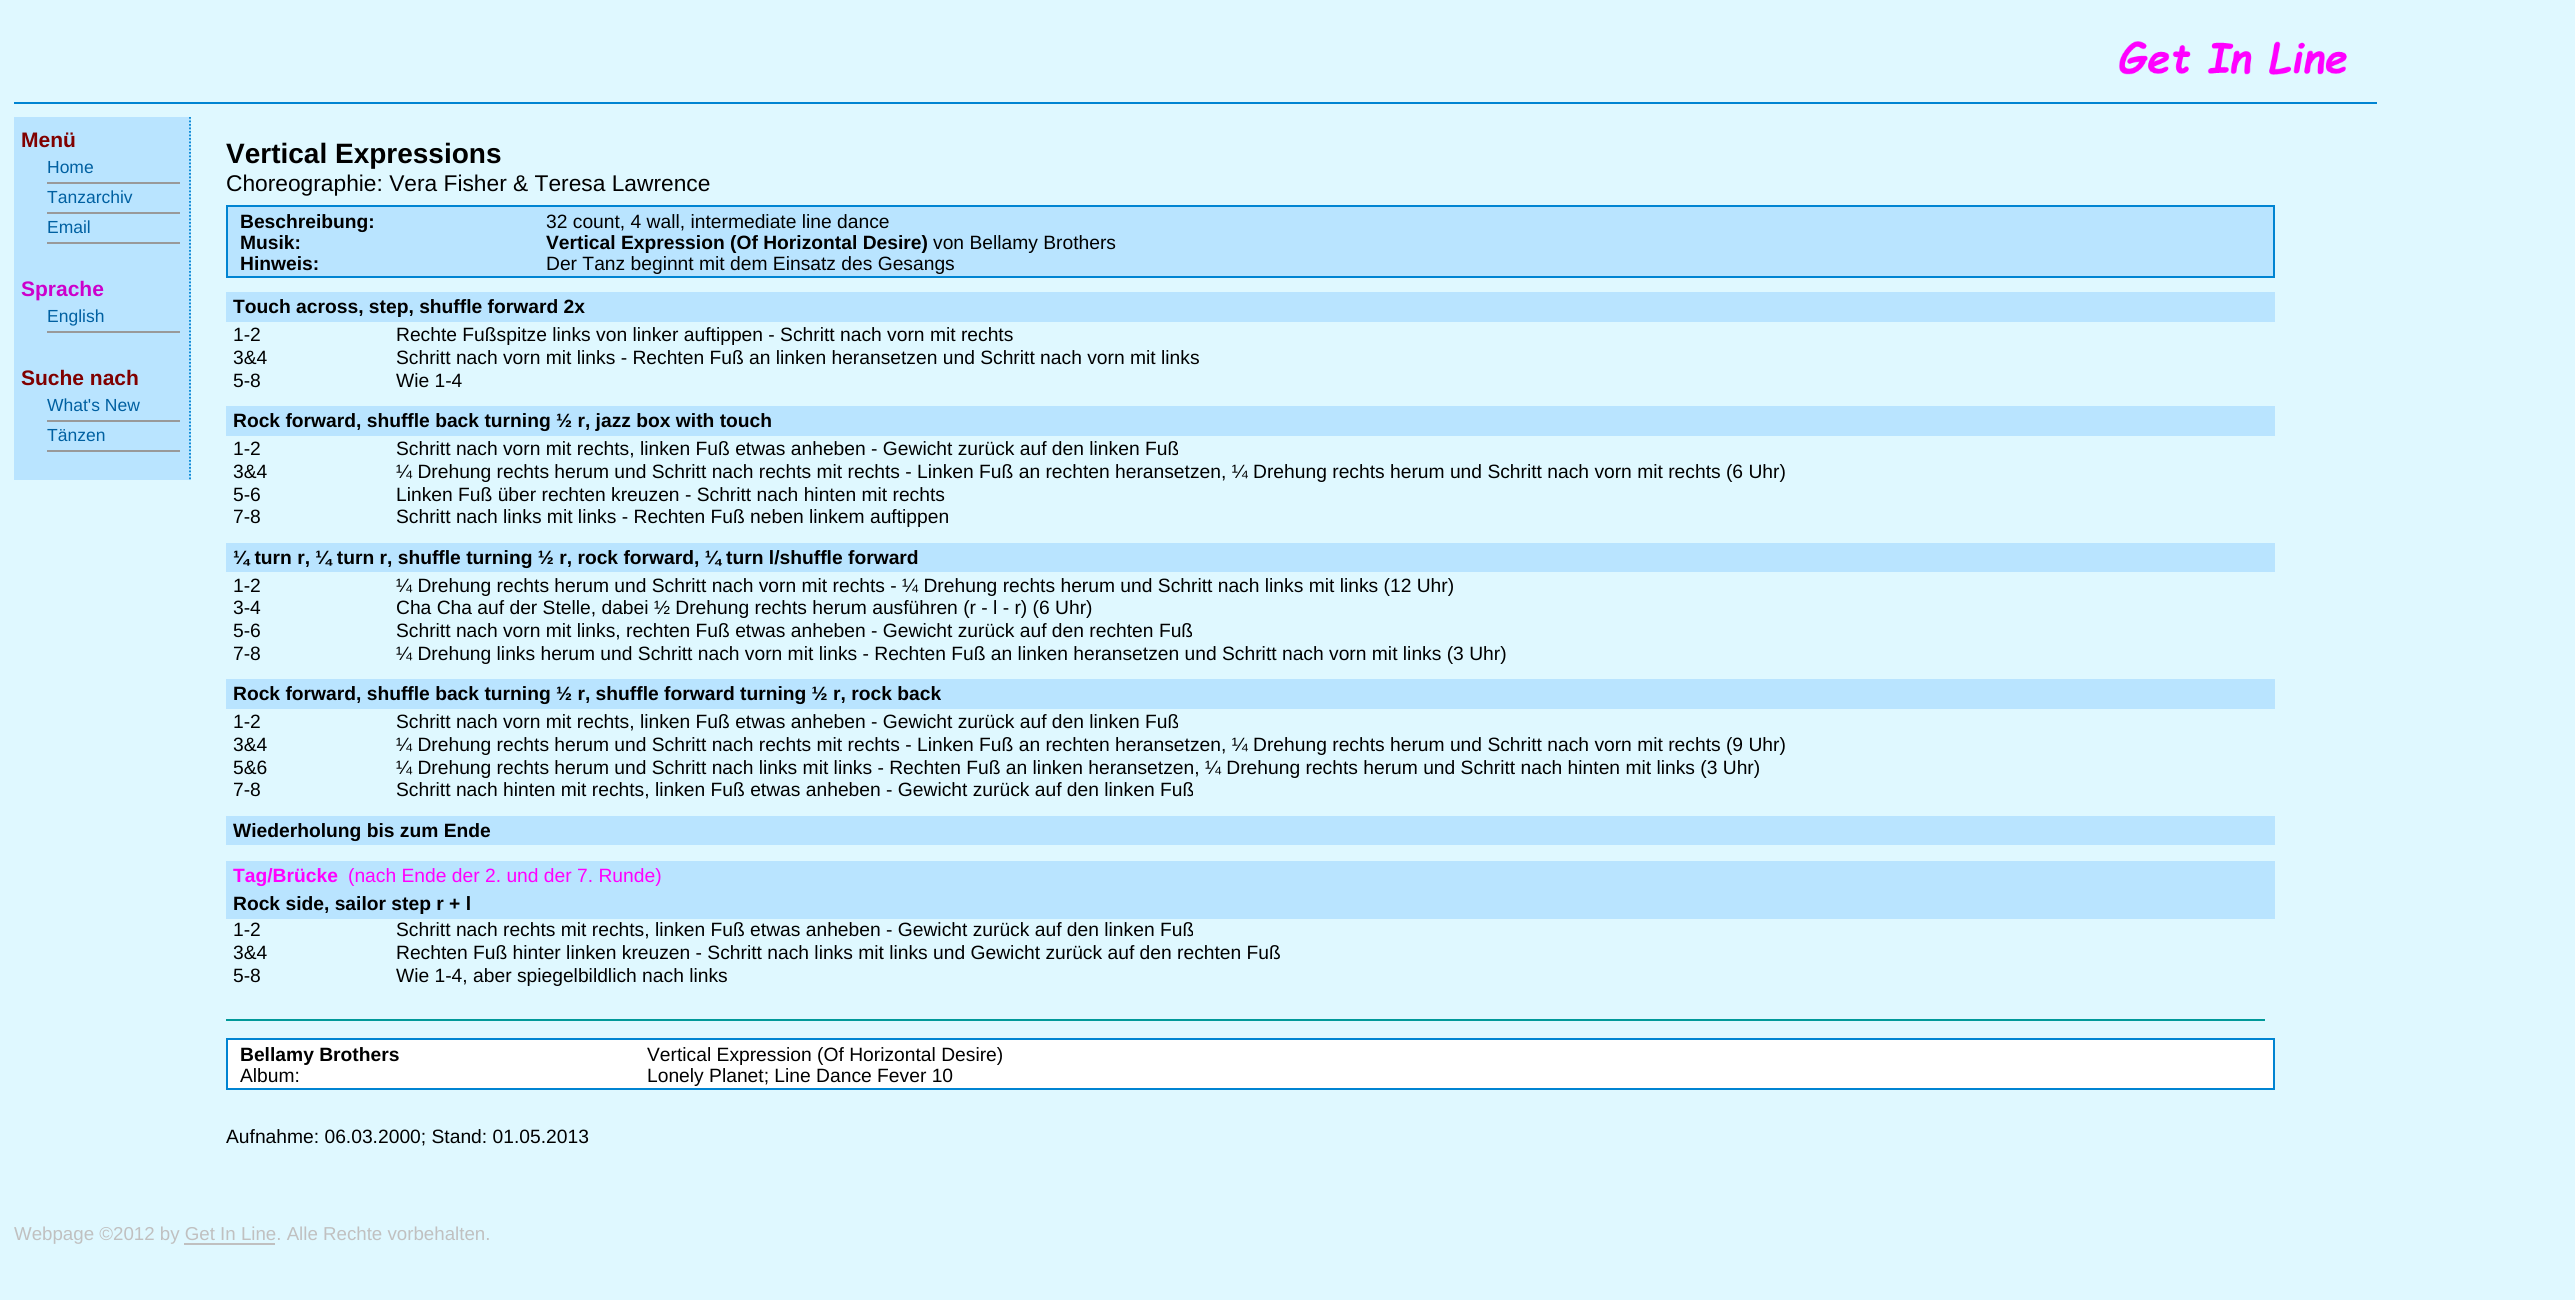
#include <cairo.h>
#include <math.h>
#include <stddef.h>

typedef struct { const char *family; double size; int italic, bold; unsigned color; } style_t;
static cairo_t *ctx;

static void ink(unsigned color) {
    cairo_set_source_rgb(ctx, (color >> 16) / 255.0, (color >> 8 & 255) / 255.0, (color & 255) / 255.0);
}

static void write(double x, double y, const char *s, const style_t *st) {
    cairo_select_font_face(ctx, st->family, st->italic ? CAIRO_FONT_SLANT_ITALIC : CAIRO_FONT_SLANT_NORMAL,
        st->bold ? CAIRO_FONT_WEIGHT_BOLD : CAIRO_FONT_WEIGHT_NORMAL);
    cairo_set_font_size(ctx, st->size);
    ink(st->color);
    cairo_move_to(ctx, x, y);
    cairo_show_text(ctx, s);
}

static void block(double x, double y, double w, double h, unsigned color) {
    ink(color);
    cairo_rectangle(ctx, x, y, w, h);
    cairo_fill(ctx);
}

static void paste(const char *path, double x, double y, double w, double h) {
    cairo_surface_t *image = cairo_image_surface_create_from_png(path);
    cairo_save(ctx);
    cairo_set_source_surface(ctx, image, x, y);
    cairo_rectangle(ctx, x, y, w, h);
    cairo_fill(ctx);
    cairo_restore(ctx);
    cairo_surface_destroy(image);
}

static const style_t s1 = {"Liberation Sans", 21, 0, 1, 0x800000};
static const style_t s2 = {"Liberation Sans", 17.5, 0, 0, 0x0060a1};
static const style_t s3 = {"Liberation Sans", 21, 0, 1, 0xcc00cc};
static const style_t s4 = {"Liberation Sans", 28, 0, 1, 0x000000};
static const style_t s5 = {"Liberation Sans", 22.75, 0, 0, 0x000000};
static const style_t s6 = {"Liberation Sans", 19.25, 0, 1, 0x000000};
static const style_t s7 = {"Liberation Sans", 19.25, 0, 0, 0x000000};
static const style_t s8 = {"Liberation Sans", 19.25, 0, 1, 0xff00ff};
static const style_t s9 = {"Liberation Sans", 19.25, 0, 0, 0xff00ff};
static const style_t s10 = {"Liberation Sans", 18.7, 0, 0, 0xc0c0c0};

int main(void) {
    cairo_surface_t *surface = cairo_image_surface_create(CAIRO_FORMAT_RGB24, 2575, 1300);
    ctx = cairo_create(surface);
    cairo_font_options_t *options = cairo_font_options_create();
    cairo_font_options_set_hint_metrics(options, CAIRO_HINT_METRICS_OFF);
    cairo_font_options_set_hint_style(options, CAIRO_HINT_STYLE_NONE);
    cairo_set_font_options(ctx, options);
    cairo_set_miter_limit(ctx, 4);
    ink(0xdff8ff);
    cairo_paint(ctx);
    block(14, 102, 2363, 2, 0x0084d2);
    paste("pic1.png", 2119, 41, 228, 34);
    block(14, 117, 177, 363, 0xb9e4ff);
    cairo_new_path(ctx);
    cairo_move_to(ctx, 190, 117);
    cairo_line_to(ctx, 190, 479.5);
    ink(0x0084d2);
    cairo_set_line_width(ctx, 1.8);
    cairo_set_dash(ctx, (double[]){1.75, 1.75}, 2, 0);
    cairo_stroke(ctx);
    write(21, 147, "Menü", &s1);
    block(47, 182, 133, 2, 0x999999);
    write(47, 173, "Home", &s2);
    block(47, 212, 133, 2, 0x999999);
    write(47, 203, "Tanzarchiv", &s2);
    block(47, 242, 133, 2, 0x999999);
    write(47, 233, "Email", &s2);
    write(21, 296, "Sprache", &s3);
    block(47, 331, 133, 2, 0x999999);
    write(47, 322, "English", &s2);
    write(21, 385, "Suche nach", &s1);
    block(47, 420, 133, 2, 0x999999);
    write(47, 411, "What's New", &s2);
    block(47, 450, 133, 2, 0x999999);
    write(47, 441, "Tänzen", &s2);
    write(226, 163, "Vertical Expressions", &s4);
    write(226, 191, "Choreographie: Vera Fisher & Teresa Lawrence", &s5);
    ink(0xb9e4ff);
    cairo_rectangle(ctx, 227, 206, 2047, 71);
    cairo_fill_preserve(ctx);
    ink(0x0084d2);
    cairo_set_line_width(ctx, 2);
    cairo_set_dash(ctx, NULL, 0, 0);
    cairo_stroke(ctx);
    write(240, 228, "Beschreibung:", &s6);
    write(546, 228, "32 count, 4 wall, intermediate line dance", &s7);
    write(240, 249, "Musik:", &s6);
    write(546, 249, "Vertical Expression (Of Horizontal Desire)", &s6);
    write(933, 249, "von Bellamy Brothers", &s7);
    write(240, 270, "Hinweis:", &s6);
    write(546, 270, "Der Tanz beginnt mit dem Einsatz des Gesangs", &s7);
    block(226, 292, 2049, 30, 0xb9e4ff);
    write(233, 313, "Touch across, step, shuffle forward 2x", &s6);
    write(233, 341, "1-2", &s7);
    write(396, 341, "Rechte Fußspitze links von linker auftippen - Schritt nach vorn mit rechts", &s7);
    write(233, 364, "3&4", &s7);
    write(396, 364, "Schritt nach vorn mit links - Rechten Fuß an linken heransetzen und Schritt nach vorn mit links", &s7);
    write(233, 387, "5-8", &s7);
    write(396, 387, "Wie 1-4", &s7);
    block(226, 406, 2049, 30, 0xb9e4ff);
    write(233, 427, "Rock forward, shuffle back turning ½ r, jazz box with touch", &s6);
    write(233, 455, "1-2", &s7);
    write(396, 455, "Schritt nach vorn mit rechts, linken Fuß etwas anheben - Gewicht zurück auf den linken Fuß", &s7);
    write(233, 478, "3&4", &s7);
    write(396, 478, "¼ Drehung rechts herum und Schritt nach rechts mit rechts - Linken Fuß an rechten heransetzen, ¼ Drehung rechts herum und Schritt nach vorn mit rechts (6 Uhr)", &s7);
    write(233, 501, "5-6", &s7);
    write(396, 501, "Linken Fuß über rechten kreuzen - Schritt nach hinten mit rechts", &s7);
    write(233, 523, "7-8", &s7);
    write(396, 523, "Schritt nach links mit links - Rechten Fuß neben linkem auftippen", &s7);
    block(226, 543, 2049, 29, 0xb9e4ff);
    write(233, 564, "¼ turn r, ¼ turn r, shuffle turning ½ r, rock forward, ¼ turn l/shuffle forward", &s6);
    write(233, 592, "1-2", &s7);
    write(396, 592, "¼ Drehung rechts herum und Schritt nach vorn mit rechts - ¼ Drehung rechts herum und Schritt nach links mit links (12 Uhr)", &s7);
    write(233, 614, "3-4", &s7);
    write(396, 614, "Cha Cha auf der Stelle, dabei ½ Drehung rechts herum ausführen (r - l - r) (6 Uhr)", &s7);
    write(233, 637, "5-6", &s7);
    write(396, 637, "Schritt nach vorn mit links, rechten Fuß etwas anheben - Gewicht zurück auf den rechten Fuß", &s7);
    write(233, 660, "7-8", &s7);
    write(396, 660, "¼ Drehung links herum und Schritt nach vorn mit links - Rechten Fuß an linken heransetzen und Schritt nach vorn mit links (3 Uhr)", &s7);
    block(226, 679, 2049, 30, 0xb9e4ff);
    write(233, 700, "Rock forward, shuffle back turning ½ r, shuffle forward turning ½ r, rock back", &s6);
    write(233, 728, "1-2", &s7);
    write(396, 728, "Schritt nach vorn mit rechts, linken Fuß etwas anheben - Gewicht zurück auf den linken Fuß", &s7);
    write(233, 751, "3&4", &s7);
    write(396, 751, "¼ Drehung rechts herum und Schritt nach rechts mit rechts - Linken Fuß an rechten heransetzen, ¼ Drehung rechts herum und Schritt nach vorn mit rechts (9 Uhr)", &s7);
    write(233, 774, "5&6", &s7);
    write(396, 774, "¼ Drehung rechts herum und Schritt nach links mit links - Rechten Fuß an linken heransetzen, ¼ Drehung rechts herum und Schritt nach hinten mit links (3 Uhr)", &s7);
    write(233, 796, "7-8", &s7);
    write(396, 796, "Schritt nach hinten mit rechts, linken Fuß etwas anheben - Gewicht zurück auf den linken Fuß", &s7);
    block(226, 816, 2049, 29, 0xb9e4ff);
    write(233, 837, "Wiederholung bis zum Ende", &s6);
    block(226, 861, 2049, 58, 0xb9e4ff);
    write(233, 882, "Tag/Brücke", &s8);
    write(348, 882, "(nach Ende der 2. und der 7. Runde)", &s9);
    write(233, 910, "Rock side, sailor step r + l", &s6);
    write(233, 936, "1-2", &s7);
    write(396, 936, "Schritt nach rechts mit rechts, linken Fuß etwas anheben - Gewicht zurück auf den linken Fuß", &s7);
    write(233, 959, "3&4", &s7);
    write(396, 959, "Rechten Fuß hinter linken kreuzen - Schritt nach links mit links und Gewicht zurück auf den rechten Fuß", &s7);
    write(233, 982, "5-8", &s7);
    write(396, 982, "Wie 1-4, aber spiegelbildlich nach links", &s7);
    block(226, 1019, 2039, 2, 0x009999);
    ink(0xffffff);
    cairo_rectangle(ctx, 227, 1039, 2047, 50);
    cairo_fill_preserve(ctx);
    ink(0x0084d2);
    cairo_stroke(ctx);
    write(240, 1061, "Bellamy Brothers", &s6);
    write(647, 1061, "Vertical Expression (Of Horizontal Desire)", &s7);
    write(240, 1082, "Album:", &s7);
    write(647, 1082, "Lonely Planet; Line Dance Fever 10", &s7);
    write(226, 1143, "Aufnahme: 06.03.2000; Stand: 01.05.2013", &s7);
    write(14, 1240, "Webpage ©2012 by Get In Line. Alle Rechte vorbehalten.", &s10);
    block(184, 1243, 91, 2, 0xc0c0c0);
    cairo_surface_write_to_png(surface, "screenshot.png");
    cairo_font_options_destroy(options);
    cairo_destroy(ctx);
    cairo_surface_destroy(surface);
    return 0;
}
